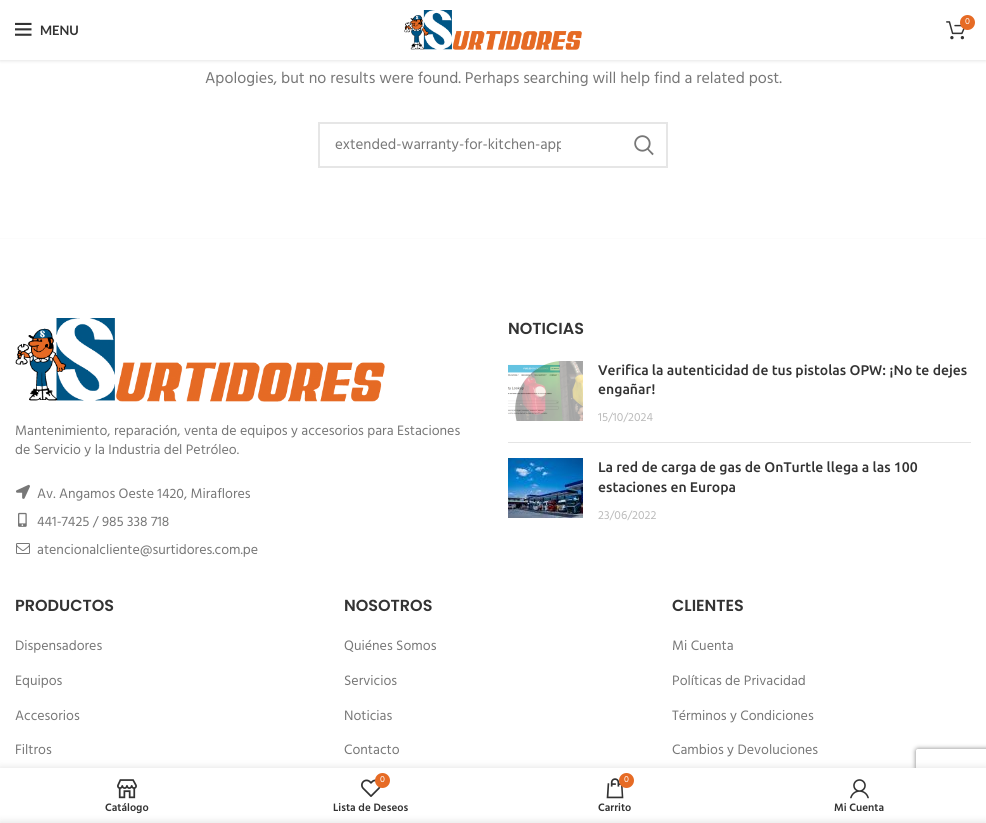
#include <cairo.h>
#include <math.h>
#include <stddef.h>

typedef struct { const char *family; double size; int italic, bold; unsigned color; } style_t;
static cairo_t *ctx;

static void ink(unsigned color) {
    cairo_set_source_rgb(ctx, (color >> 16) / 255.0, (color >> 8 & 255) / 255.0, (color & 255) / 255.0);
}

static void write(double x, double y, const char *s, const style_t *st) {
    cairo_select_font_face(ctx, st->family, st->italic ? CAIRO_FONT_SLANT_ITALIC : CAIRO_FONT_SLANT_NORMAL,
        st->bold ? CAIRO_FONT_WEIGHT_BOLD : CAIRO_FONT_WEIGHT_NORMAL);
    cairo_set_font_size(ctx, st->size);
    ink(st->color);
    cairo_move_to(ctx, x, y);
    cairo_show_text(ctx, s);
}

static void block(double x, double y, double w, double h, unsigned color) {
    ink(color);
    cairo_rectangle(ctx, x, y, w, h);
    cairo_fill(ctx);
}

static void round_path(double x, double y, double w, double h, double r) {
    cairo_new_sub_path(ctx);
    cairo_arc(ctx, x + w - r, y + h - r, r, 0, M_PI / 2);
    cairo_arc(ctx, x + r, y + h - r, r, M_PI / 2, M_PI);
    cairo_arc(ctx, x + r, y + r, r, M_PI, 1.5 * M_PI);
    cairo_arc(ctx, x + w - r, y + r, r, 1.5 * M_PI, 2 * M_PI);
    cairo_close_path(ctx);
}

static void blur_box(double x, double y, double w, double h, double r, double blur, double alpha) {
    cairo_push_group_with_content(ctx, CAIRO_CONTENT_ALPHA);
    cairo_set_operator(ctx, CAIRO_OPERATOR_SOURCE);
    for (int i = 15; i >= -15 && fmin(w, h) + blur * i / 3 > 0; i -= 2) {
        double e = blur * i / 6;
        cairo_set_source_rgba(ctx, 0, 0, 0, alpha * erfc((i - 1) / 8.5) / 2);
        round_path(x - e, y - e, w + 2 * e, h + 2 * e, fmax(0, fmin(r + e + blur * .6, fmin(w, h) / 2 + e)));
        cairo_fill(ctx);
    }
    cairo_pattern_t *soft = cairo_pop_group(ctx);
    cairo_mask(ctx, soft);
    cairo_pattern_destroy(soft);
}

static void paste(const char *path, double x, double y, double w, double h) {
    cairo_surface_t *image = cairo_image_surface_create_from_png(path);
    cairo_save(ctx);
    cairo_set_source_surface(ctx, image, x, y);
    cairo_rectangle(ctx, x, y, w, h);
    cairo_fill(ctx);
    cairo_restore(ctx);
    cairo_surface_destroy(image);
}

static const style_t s1 = {"Hind", 9, 0, 0, 0xffffff};
static const style_t s2 = {"Lato", 13, 0, 1, 0x333333};
static const style_t s3 = {"Hind", 16, 0, 0, 0x777777};
static const style_t s4 = {"Hind", 15, 0, 0, 0x777777};
static const style_t s5 = {"Hind", 14, 0, 0, 0x777777};
static const style_t s6 = {"Poppins SemiBold", 16, 0, 0, 0x333333};
static const style_t s7 = {"Ubuntu Medium", 14, 0, 0, 0x333333};
static const style_t s8 = {"Hind", 12, 0, 0, 0xbbbbbb};
static const style_t s9 = {"Hind SemiBold", 11, 0, 0, 0x333333};

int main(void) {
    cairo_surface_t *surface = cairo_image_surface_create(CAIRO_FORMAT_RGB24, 986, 823);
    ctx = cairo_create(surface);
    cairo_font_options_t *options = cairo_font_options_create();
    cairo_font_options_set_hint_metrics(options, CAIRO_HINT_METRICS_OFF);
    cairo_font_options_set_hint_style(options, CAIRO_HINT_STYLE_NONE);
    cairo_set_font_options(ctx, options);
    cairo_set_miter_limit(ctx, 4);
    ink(0xffffff);
    cairo_paint(ctx);
    ink(0x000000);
    blur_box(0, 1, 986, 60, 0, 1.5, 0.1);
    block(0, 0, 986, 60, 0xffffff);
    paste("pic1.png", 404, 10, 178, 40);
    paste("pic2.png", 946, 21, 19, 19);
    ink(0xe66b25);
    cairo_arc(ctx, 967.5, 22.5, 7.5, 0, 2 * M_PI);
    cairo_fill(ctx);
    write(965, 24, "0", &s1);
    paste("pic3.png", 15, 22, 17, 14);
    write(40, 35, "MENU", &s2);
    write(205, 83, "Apologies, but no results were found. Perhaps searching will help find a related post.", &s3);
    cairo_rectangle(ctx, 319, 123, 348, 44);
    ink(0xe6e6e6);
    cairo_stroke(ctx);
    cairo_save(ctx);
    cairo_rectangle(ctx, 335, 133, 226, 24);
    cairo_clip(ctx);
    write(335, 149, "extended-warranty-for-kitchen-app", &s4);
    cairo_restore(ctx);
    paste("pic4.png", 634, 135, 20, 21);
    block(0, 238, 986, 1, 0xfcfcfc);
    paste("pic5.png", 15, 318, 370, 84);
    write(15, 435, "Mantenimiento, reparación, venta de equipos y accesorios para Estaciones", &s5);
    write(15, 454, "de Servicio y la Industria del Petróleo.", &s5);
    paste("pic6.png", 16, 484, 14, 15);
    write(37, 498, "Av. Angamos Oeste 1420, Miraflores", &s5);
    paste("pic7.png", 18, 512, 9, 15);
    write(37, 526, "441-7425 / 985 338 718", &s5);
    paste("pic8.png", 16, 543, 14, 11);
    write(37, 554, "atencionalcliente@surtidores.com.pe", &s5);
    write(508, 334, "NOTICIAS", &s6);
    block(508, 442, 463, 1, 0xe4e4e4);
    paste("pic9.png", 508, 361, 75, 60);
    write(598, 375, "Verifica la autenticidad de tus pistolas OPW: ¡No te dejes", &s7);
    write(598, 394, "engañar!", &s7);
    write(598, 421, "15/10/2024", &s8);
    paste("pic10.png", 508, 458, 75, 60);
    write(598, 472, "La red de carga de gas de OnTurtle llega a las 100", &s7);
    write(598, 492, "estaciones en Europa", &s7);
    write(598, 519, "23/06/2022", &s8);
    write(15, 611, "PRODUCTOS", &s6);
    write(15, 650, "Dispensadores", &s5);
    write(15, 685, "Equipos", &s5);
    write(15, 720, "Accesorios", &s5);
    write(15, 754, "Filtros", &s5);
    write(344, 611, "NOSOTROS", &s6);
    write(344, 650, "Quiénes Somos", &s5);
    write(344, 685, "Servicios", &s5);
    write(344, 720, "Noticias", &s5);
    write(344, 754, "Contacto", &s5);
    write(672, 611, "CLIENTES", &s6);
    write(672, 650, "Mi Cuenta", &s5);
    write(672, 685, "Políticas de Privacidad", &s5);
    write(672, 720, "Términos y Condiciones", &s5);
    write(672, 754, "Cambios y Devoluciones", &s5);
    ink(0x000000);
    blur_box(0, 768, 986, 55, 0, 4.5, 0.12);
    cairo_save(ctx);
    cairo_set_fill_rule(ctx, CAIRO_FILL_RULE_EVEN_ODD);
    cairo_new_path(ctx);
    cairo_move_to(ctx, 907, 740);
    cairo_line_to(ctx, 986, 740);
    cairo_line_to(ctx, 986, 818);
    cairo_line_to(ctx, 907, 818);
    cairo_close_path(ctx);
    cairo_move_to(ctx, 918, 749);
    cairo_line_to(ctx, 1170, 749);
    cairo_curve_to(ctx, 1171, 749, 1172, 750, 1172, 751);
    cairo_line_to(ctx, 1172, 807);
    cairo_curve_to(ctx, 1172, 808, 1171, 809, 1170, 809);
    cairo_line_to(ctx, 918, 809);
    cairo_curve_to(ctx, 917, 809, 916, 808, 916, 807);
    cairo_line_to(ctx, 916, 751);
    cairo_curve_to(ctx, 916, 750, 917, 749, 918, 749);
    cairo_close_path(ctx);
    cairo_clip(ctx);
    ink(0x808080);
    blur_box(916, 749, 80, 60, 2, 2.5, 1);
    cairo_restore(ctx);
    block(0, 768, 986, 55, 0xffffff);
    paste("pic11.png", 117, 779, 20, 20);
    write(105, 811, "Catálogo", &s9);
    paste("pic12.png", 361, 779, 20, 18);
    ink(0xe66b25);
    cairo_arc(ctx, 382.5, 780.5, 7.5, 0, 2 * M_PI);
    cairo_fill(ctx);
    write(380, 782, "0", &s1);
    write(333, 811, "Lista de Deseos", &s9);
    paste("pic13.png", 606, 778, 18, 21);
    ink(0xe66b25);
    cairo_arc(ctx, 626.5, 780.5, 7.5, 0, 2 * M_PI);
    cairo_fill(ctx);
    write(624, 782, "0", &s1);
    write(598, 811, "Carrito", &s9);
    paste("pic14.png", 850, 779, 19, 20);
    write(834, 811, "Mi Cuenta", &s9);
    ink(0x000000);
    blur_box(0, 823, 986, 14, 0, 4.5, 0.14);
    cairo_surface_write_to_png(surface, "screenshot.png");
    cairo_font_options_destroy(options);
    cairo_destroy(ctx);
    cairo_surface_destroy(surface);
    return 0;
}
